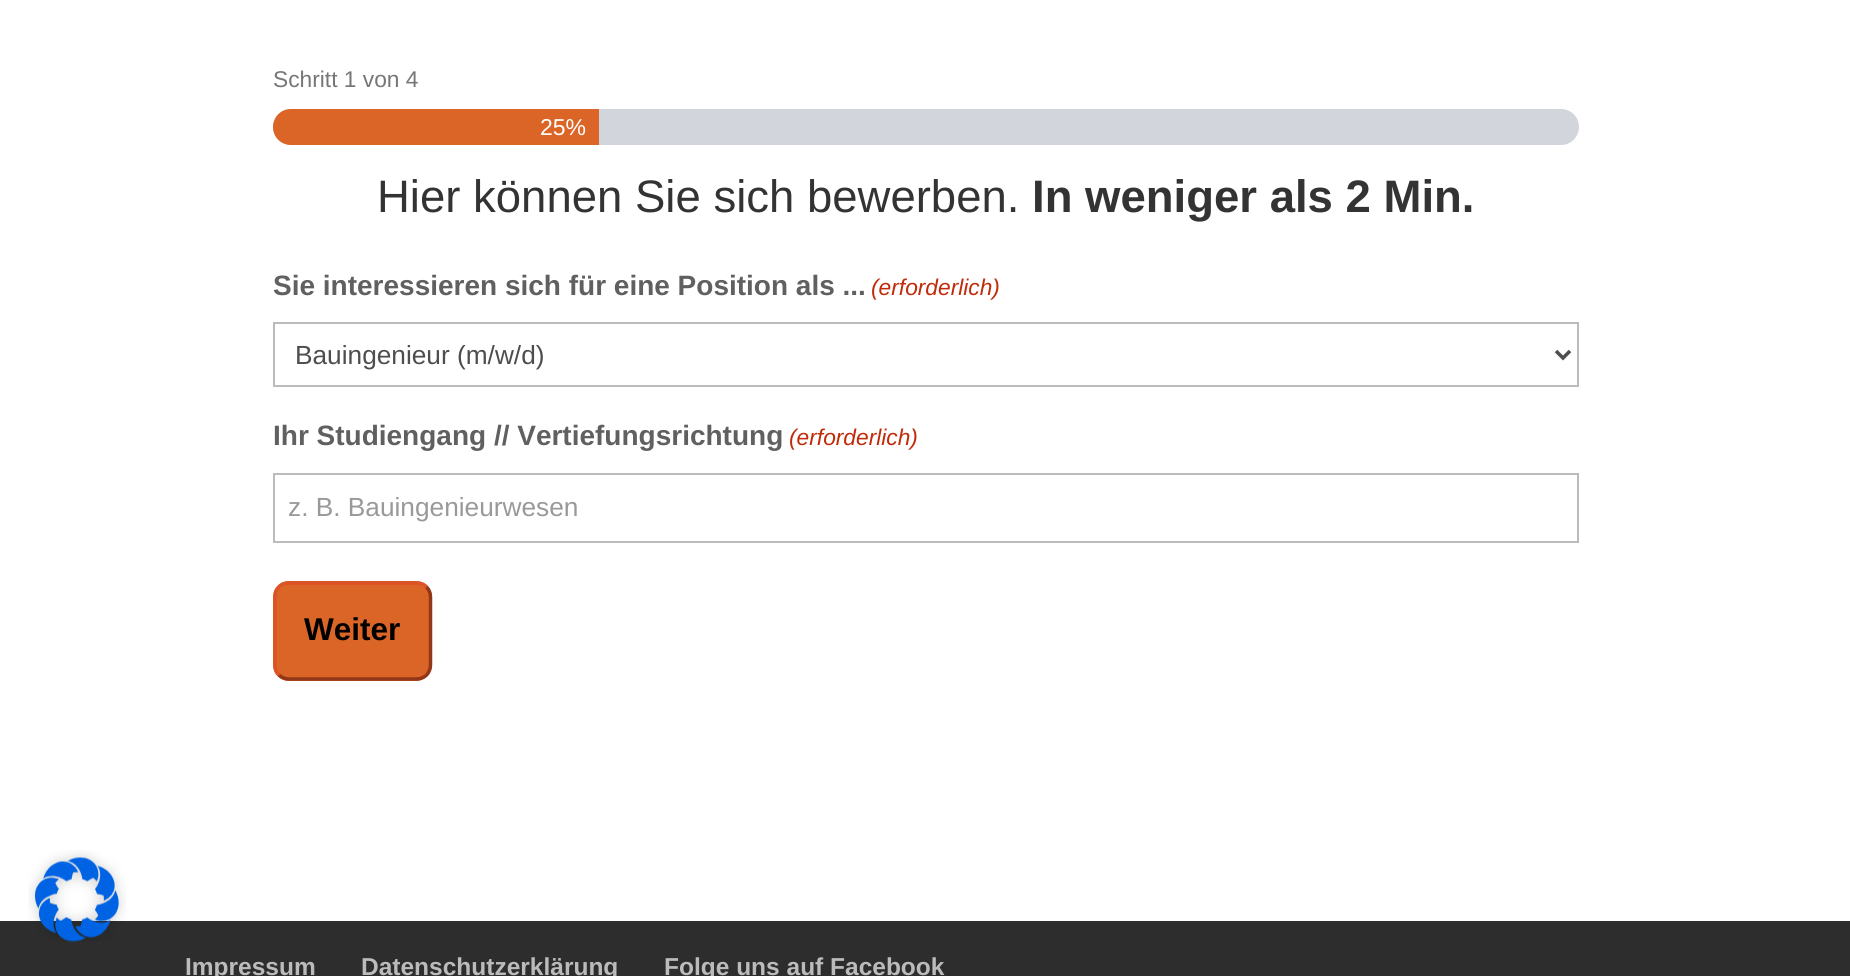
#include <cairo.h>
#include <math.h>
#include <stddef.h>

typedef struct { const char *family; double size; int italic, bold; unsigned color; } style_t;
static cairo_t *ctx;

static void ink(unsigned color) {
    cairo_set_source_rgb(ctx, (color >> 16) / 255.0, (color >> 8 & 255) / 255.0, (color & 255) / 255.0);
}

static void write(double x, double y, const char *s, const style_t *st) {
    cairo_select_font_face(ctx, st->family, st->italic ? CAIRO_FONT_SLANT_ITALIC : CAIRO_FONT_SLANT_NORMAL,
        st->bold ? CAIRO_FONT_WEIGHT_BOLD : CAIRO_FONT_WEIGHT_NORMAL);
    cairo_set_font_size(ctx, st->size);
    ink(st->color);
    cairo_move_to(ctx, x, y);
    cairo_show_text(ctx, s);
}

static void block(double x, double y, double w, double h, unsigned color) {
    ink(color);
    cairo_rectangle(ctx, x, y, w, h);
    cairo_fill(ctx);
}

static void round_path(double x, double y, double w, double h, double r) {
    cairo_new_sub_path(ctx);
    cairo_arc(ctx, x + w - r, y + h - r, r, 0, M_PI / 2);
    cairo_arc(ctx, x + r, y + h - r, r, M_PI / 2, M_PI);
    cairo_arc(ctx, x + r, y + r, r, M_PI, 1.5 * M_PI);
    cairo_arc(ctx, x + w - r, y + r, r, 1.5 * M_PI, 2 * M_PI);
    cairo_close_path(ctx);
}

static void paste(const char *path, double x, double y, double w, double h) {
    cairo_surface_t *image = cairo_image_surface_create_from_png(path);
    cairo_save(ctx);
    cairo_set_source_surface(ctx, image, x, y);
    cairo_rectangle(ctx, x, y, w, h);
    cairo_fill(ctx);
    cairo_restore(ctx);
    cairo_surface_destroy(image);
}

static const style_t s1 = {"Liberation Sans", 22.75, 0, 0, 0x767676};
static const style_t s2 = {"Liberation Sans", 23, 0, 0, 0xffffff};
static const style_t s3 = {"Liberation Sans", 45.5, 0, 0, 0x333333};
static const style_t s4 = {"Liberation Sans", 45.5, 0, 1, 0x333333};
static const style_t s5 = {"Liberation Sans", 28, 0, 1, 0x606060};
static const style_t s6 = {"Liberation Sans", 22.75, 1, 0, 0xc02b0a};
static const style_t s7 = {"Liberation Sans", 26.25, 0, 0, 0x4e4e4e};
static const style_t s8 = {"Liberation Sans", 26.25, 0, 0, 0x999999};
static const style_t s9 = {"Liberation Sans", 31.5, 0, 1, 0x000000};
static const style_t s10 = {"Liberation Sans", 24.5, 0, 1, 0xbbbbbb};

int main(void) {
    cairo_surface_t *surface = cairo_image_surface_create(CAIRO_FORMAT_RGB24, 1850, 976);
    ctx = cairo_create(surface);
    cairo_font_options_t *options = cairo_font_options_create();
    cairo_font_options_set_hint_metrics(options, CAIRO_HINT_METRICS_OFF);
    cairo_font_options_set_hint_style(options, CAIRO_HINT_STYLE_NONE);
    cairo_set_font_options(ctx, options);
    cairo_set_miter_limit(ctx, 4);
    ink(0xffffff);
    cairo_paint(ctx);
    block(0, 921, 1850, 55, 0x2d2d2d);
    paste("pic1.png", 28, 850, 98, 92);
    write(273, 87, "Schritt 1 von 4", &s1);
    ink(0xd2d6dc);
    round_path(273, 109, 1306, 36, 18);
    cairo_fill(ctx);
    ink(0xdb6526);
    cairo_new_path(ctx);
    cairo_move_to(ctx, 291, 109);
    cairo_line_to(ctx, 599, 109);
    cairo_line_to(ctx, 599, 145);
    cairo_line_to(ctx, 291, 145);
    cairo_curve_to(ctx, 281, 145, 273, 137, 273, 127);
    cairo_curve_to(ctx, 273, 117, 281, 109, 291, 109);
    cairo_close_path(ctx);
    cairo_fill(ctx);
    write(540, 135, "25%", &s2);
    write(377, 212, "Hier können Sie sich bewerben.", &s3);
    write(1032, 212, "In weniger als 2 Min.", &s4);
    write(273, 295, "Sie interessieren sich für eine Position als ...", &s5);
    write(871, 295, "(erforderlich)", &s6);
    cairo_rectangle(ctx, 274, 323, 1304, 63);
    ink(0xbbbbbb);
    cairo_stroke(ctx);
    cairo_new_path(ctx);
    cairo_move_to(ctx, 1556, 351);
    cairo_line_to(ctx, 1563, 358);
    cairo_line_to(ctx, 1570, 351);
    ink(0x4e4e4e);
    cairo_set_line_width(ctx, 3.5);
    cairo_stroke(ctx);
    write(295, 364, "Bauingenieur (m/w/d)", &s7);
    write(273, 445, "Ihr Studiengang // Vertiefungsrichtung", &s5);
    write(789, 445, "(erforderlich)", &s6);
    cairo_rectangle(ctx, 274, 474, 1304, 68);
    ink(0xbbbbbb);
    cairo_set_line_width(ctx, 2);
    cairo_stroke(ctx);
    write(288, 516, "z. B. Bauingenieurwesen", &s8);
    ink(0xdb6526);
    round_path(273, 581, 159, 100, 16);
    cairo_fill(ctx);
    cairo_new_path(ctx);
    cairo_move_to(ctx, 426.5, 587);
    cairo_curve_to(ctx, 429, 589.5, 430.5, 593, 430.5, 597);
    cairo_line_to(ctx, 430.5, 665);
    cairo_curve_to(ctx, 430.5, 668.5, 429, 672.5, 426.5, 675);
    cairo_curve_to(ctx, 424, 677.5, 420, 679, 416.5, 679);
    cairo_line_to(ctx, 289, 679);
    cairo_curve_to(ctx, 285, 679, 281.5, 677.5, 279, 675);
    ink(0x923719);
    cairo_set_line_width(ctx, 3.5);
    cairo_stroke(ctx);
    cairo_new_path(ctx);
    cairo_move_to(ctx, 279, 675);
    cairo_curve_to(ctx, 276, 672.5, 275, 668.5, 275, 665);
    cairo_line_to(ctx, 275, 597);
    cairo_curve_to(ctx, 275, 593, 276, 589.5, 279, 587);
    cairo_curve_to(ctx, 281.5, 584, 285, 583, 289, 583);
    cairo_line_to(ctx, 416.5, 583);
    cairo_curve_to(ctx, 420, 583, 424, 584, 426.5, 587);
    ink(0xdb5326);
    cairo_stroke(ctx);
    write(304, 640, "Weiter", &s9);
    write(185, 975, "Impressum", &s10);
    write(361, 975, "Datenschutzerklärung", &s10);
    write(664, 975, "Folge uns auf Facebook", &s10);
    cairo_surface_write_to_png(surface, "screenshot.png");
    cairo_font_options_destroy(options);
    cairo_destroy(ctx);
    cairo_surface_destroy(surface);
    return 0;
}
